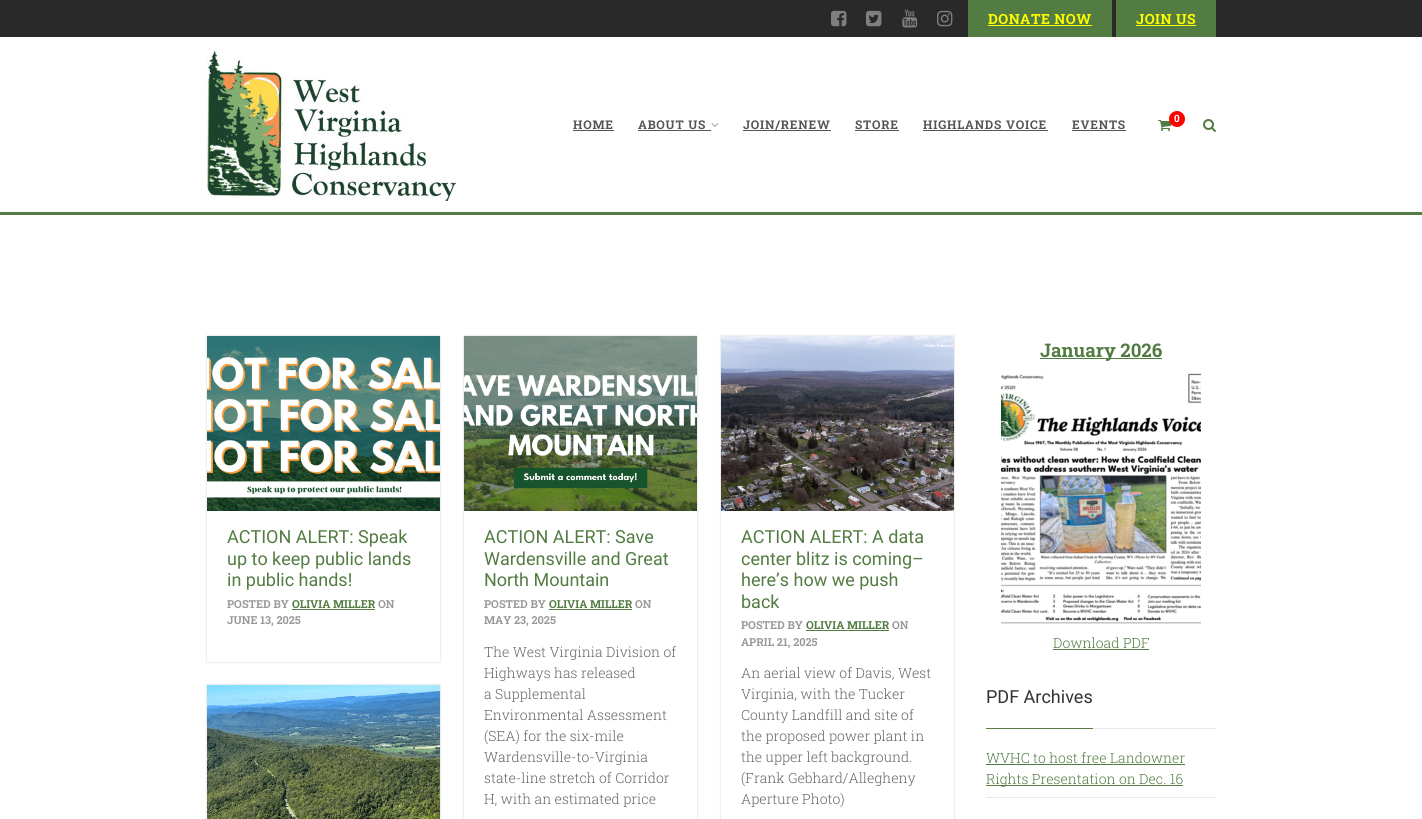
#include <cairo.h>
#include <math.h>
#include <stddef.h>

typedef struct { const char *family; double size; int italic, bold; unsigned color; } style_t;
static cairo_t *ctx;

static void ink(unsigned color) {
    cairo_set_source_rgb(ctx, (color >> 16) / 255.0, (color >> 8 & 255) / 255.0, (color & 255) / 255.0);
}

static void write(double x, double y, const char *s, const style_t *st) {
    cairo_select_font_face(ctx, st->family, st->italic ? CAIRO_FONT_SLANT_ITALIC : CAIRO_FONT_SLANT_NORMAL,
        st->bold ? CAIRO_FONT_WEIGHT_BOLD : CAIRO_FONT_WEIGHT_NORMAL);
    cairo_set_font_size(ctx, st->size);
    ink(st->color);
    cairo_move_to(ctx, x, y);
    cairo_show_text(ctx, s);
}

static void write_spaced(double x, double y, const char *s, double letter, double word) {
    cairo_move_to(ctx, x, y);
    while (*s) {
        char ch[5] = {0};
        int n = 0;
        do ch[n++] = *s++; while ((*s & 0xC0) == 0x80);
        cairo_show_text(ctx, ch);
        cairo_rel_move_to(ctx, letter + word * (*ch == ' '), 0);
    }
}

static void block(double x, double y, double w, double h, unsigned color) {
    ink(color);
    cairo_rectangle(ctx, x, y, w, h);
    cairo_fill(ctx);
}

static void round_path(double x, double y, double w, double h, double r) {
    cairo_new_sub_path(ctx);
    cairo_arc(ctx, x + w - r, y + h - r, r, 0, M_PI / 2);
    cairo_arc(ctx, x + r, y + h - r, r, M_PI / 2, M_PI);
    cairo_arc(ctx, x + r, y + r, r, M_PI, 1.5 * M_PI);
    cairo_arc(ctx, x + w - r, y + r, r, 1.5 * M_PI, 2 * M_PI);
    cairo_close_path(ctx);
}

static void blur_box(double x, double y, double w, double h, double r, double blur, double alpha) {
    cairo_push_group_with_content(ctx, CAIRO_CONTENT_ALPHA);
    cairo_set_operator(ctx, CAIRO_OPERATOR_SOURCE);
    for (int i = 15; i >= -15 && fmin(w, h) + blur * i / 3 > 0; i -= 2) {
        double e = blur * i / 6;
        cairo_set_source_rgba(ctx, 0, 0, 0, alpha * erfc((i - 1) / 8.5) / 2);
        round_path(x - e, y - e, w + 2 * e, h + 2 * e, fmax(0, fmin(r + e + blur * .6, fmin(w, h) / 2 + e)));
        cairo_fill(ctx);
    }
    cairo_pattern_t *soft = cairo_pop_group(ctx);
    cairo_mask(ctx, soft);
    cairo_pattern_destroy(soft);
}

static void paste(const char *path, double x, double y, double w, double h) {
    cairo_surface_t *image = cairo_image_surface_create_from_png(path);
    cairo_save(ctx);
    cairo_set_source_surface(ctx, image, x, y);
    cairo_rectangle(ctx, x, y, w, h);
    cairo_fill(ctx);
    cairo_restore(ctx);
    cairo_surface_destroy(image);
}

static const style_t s1 = {"Roboto Slab", 10, 0, 1, 0xffffff};
static const style_t s2 = {"Roboto", 18, 0, 0, 0x527c42};
static const style_t s3 = {"Roboto Slab", 11, 0, 1, 0x999999};
static const style_t s4 = {"Roboto Slab", 11, 0, 1, 0x527c42};
static const style_t s5 = {"Roboto Slab Light", 14, 0, 0, 0x666666};
static const style_t s6 = {"Roboto Slab", 18.75, 0, 1, 0x527c42};
static const style_t s7 = {"Roboto Slab Light", 14, 0, 0, 0x527c42};
static const style_t s8 = {"Roboto", 18, 0, 0, 0x333333};

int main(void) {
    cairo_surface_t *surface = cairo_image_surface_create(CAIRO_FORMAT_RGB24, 1422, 819);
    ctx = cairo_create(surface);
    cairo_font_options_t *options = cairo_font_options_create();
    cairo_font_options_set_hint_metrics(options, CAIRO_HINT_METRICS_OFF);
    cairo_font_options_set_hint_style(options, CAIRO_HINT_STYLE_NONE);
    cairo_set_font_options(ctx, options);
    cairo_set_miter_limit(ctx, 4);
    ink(0xffffff);
    cairo_paint(ctx);
    block(0, 0, 1422, 37, 0x292929);
    paste("pic1.png", 831, 10, 16, 17);
    paste("pic2.png", 866, 10, 16, 17);
    paste("pic3.png", 902, 9, 16, 19);
    paste("pic4.png", 937, 10, 16, 17);
    block(968, 0, 144, 37, 0x527c42);
    cairo_select_font_face(ctx, "Roboto Slab", CAIRO_FONT_SLANT_NORMAL, CAIRO_FONT_WEIGHT_BOLD);
    cairo_set_font_size(ctx, 14);
    ink(0xffff00);
    write_spaced(988, 24, "DONATE NOW", 0.5, 0);
    block(988, 25, 104, 1, 0xffff00);
    block(1116, 0, 100, 37, 0x527c42);
    ink(0xffff00);
    write_spaced(1136, 24, "JOIN US", 0.5, 0);
    block(1136, 25, 60, 1, 0xffff00);
    paste("pic5.png", 206, 48, 250, 153);
    cairo_set_font_size(ctx, 12);
    ink(0x555555);
    write_spaced(573, 129, "HOME", 0.8, 0);
    block(573, 130, 41, 1, 0x555555);
    write_spaced(638, 129, "ABOUT US", 0.8, 0);
    block(638, 130, 73, 1, 0x555555);
    paste("pic6.png", 711, 123, 8, 4);
    write_spaced(743, 129, "JOIN/RENEW", 0.8, 0);
    block(743, 130, 88, 1, 0x555555);
    write_spaced(855, 129, "STORE", 0.8, 0);
    block(855, 130, 44, 1, 0x555555);
    write_spaced(923, 129, "HIGHLANDS VOICE", 0.8, 0);
    block(923, 130, 125, 1, 0x555555);
    write_spaced(1072, 129, "EVENTS", 0.8, 0);
    block(1072, 130, 54, 1, 0x555555);
    paste("pic7.png", 1158, 120, 13, 11);
    ink(0xff0000);
    cairo_arc(ctx, 1177, 119, 8, 0, 2 * M_PI);
    cairo_fill(ctx);
    write(1174, 122, "0", &s1);
    paste("pic8.png", 1203, 119, 13, 13);
    block(0, 212, 1422, 3, 0x527c42);
    cairo_save(ctx);
    cairo_set_fill_rule(ctx, CAIRO_FILL_RULE_EVEN_ODD);
    cairo_new_path(ctx);
    cairo_move_to(ctx, 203, 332);
    cairo_line_to(ctx, 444, 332);
    cairo_line_to(ctx, 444, 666);
    cairo_line_to(ctx, 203, 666);
    cairo_close_path(ctx);
    cairo_move_to(ctx, 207, 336);
    cairo_line_to(ctx, 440, 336);
    cairo_line_to(ctx, 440, 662);
    cairo_line_to(ctx, 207, 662);
    cairo_close_path(ctx);
    cairo_clip(ctx);
    ink(0x000000);
    blur_box(207, 336, 233, 326, 0, 1, 0.2);
    cairo_restore(ctx);
    paste("pic9.png", 207, 336, 233, 175);
    write(227, 543, "ACTION ALERT: Speak", &s2);
    write(227, 565, "up to keep public lands", &s2);
    write(227, 586, "in public hands!", &s2);
    write(227, 608, "POSTED BY", &s3);
    write(292, 608, "OLIVIA MILLER", &s4);
    block(292, 609, 83, 1, 0x527c42);
    write(378, 608, "ON", &s3);
    write(227, 624, "JUNE 13, 2025", &s3);
    cairo_save(ctx);
    cairo_set_fill_rule(ctx, CAIRO_FILL_RULE_EVEN_ODD);
    cairo_new_path(ctx);
    cairo_move_to(ctx, 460, 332);
    cairo_line_to(ctx, 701, 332);
    cairo_line_to(ctx, 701, 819);
    cairo_line_to(ctx, 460, 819);
    cairo_close_path(ctx);
    cairo_move_to(ctx, 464, 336);
    cairo_line_to(ctx, 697, 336);
    cairo_line_to(ctx, 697, 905);
    cairo_line_to(ctx, 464, 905);
    cairo_close_path(ctx);
    cairo_clip(ctx);
    ink(0x000000);
    blur_box(464, 336, 233, 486, 0, 1, 0.2);
    cairo_restore(ctx);
    paste("pic10.png", 464, 336, 233, 175);
    write(484, 543, "ACTION ALERT: Save", &s2);
    write(484, 565, "Wardensville and Great", &s2);
    write(484, 586, "North Mountain", &s2);
    write(484, 608, "POSTED BY", &s3);
    write(549, 608, "OLIVIA MILLER", &s4);
    block(549, 609, 83, 1, 0x527c42);
    write(635, 608, "ON", &s3);
    write(484, 624, "MAY 23, 2025", &s3);
    write(484, 657, "The West Virginia Division of", &s5);
    write(484, 678, "Highways has released", &s5);
    write(484, 699, "a Supplemental", &s5);
    write(484, 720, "Environmental Assessment", &s5);
    write(484, 741, "(SEA) for the six-mile", &s5);
    write(484, 762, "Wardensville-to-Virginia", &s5);
    write(484, 783, "state-line stretch of Corridor", &s5);
    write(484, 804, "H, with an estimated price", &s5);
    cairo_save(ctx);
    cairo_set_fill_rule(ctx, CAIRO_FILL_RULE_EVEN_ODD);
    cairo_new_path(ctx);
    cairo_move_to(ctx, 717, 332);
    cairo_line_to(ctx, 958, 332);
    cairo_line_to(ctx, 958, 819);
    cairo_line_to(ctx, 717, 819);
    cairo_close_path(ctx);
    cairo_move_to(ctx, 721, 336);
    cairo_line_to(ctx, 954, 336);
    cairo_line_to(ctx, 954, 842);
    cairo_line_to(ctx, 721, 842);
    cairo_close_path(ctx);
    cairo_clip(ctx);
    ink(0x000000);
    blur_box(721, 336, 233, 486, 0, 1, 0.2);
    cairo_restore(ctx);
    paste("pic11.png", 721, 336, 233, 175);
    write(741, 543, "ACTION ALERT: A data", &s2);
    write(741, 565, "center blitz is coming–", &s2);
    write(741, 586, "here’s how we push", &s2);
    write(741, 608, "back", &s2);
    write(741, 629, "POSTED BY", &s3);
    write(806, 629, "OLIVIA MILLER", &s4);
    block(806, 630, 83, 1, 0x527c42);
    write(892, 629, "ON", &s3);
    write(741, 646, "APRIL 21, 2025", &s3);
    write(741, 678, "An aerial view of Davis, West", &s5);
    write(741, 699, "Virginia, with the Tucker", &s5);
    write(741, 720, "County Landfill and site of", &s5);
    write(741, 741, "the proposed power plant in", &s5);
    write(741, 762, "the upper left background.", &s5);
    write(741, 783, "(Frank Gebhard/Allegheny", &s5);
    write(741, 804, "Aperture Photo)", &s5);
    ink(0x000000);
    blur_box(207, 685, 233, 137, 0, 1, 0.2);
    paste("pic12.png", 207, 685, 233, 134);
    block(1040, 358, 122, 1, 0x527c42);
    write(1040, 357, "January 2026", &s6);
    paste("pic13.png", 1001, 373, 200, 251);
    write(1053, 648, "Download PDF", &s7);
    block(1053, 649, 96, 1, 0x527c42);
    block(1093, 728, 123, 1, 0xe8e8e8);
    block(986, 728, 107, 1, 0x527c42);
    write(986, 703, "PDF Archives", &s8);
    block(986, 797, 230, 1, 0xe8e8e8);
    write(986, 763, "WVHC to host free Landowner", &s7);
    block(986, 764, 199, 1, 0x527c42);
    block(986, 785, 197, 1, 0x527c42);
    write(986, 784, "Rights Presentation on Dec. 16", &s7);
    cairo_surface_write_to_png(surface, "screenshot.png");
    cairo_font_options_destroy(options);
    cairo_destroy(ctx);
    cairo_surface_destroy(surface);
    return 0;
}
